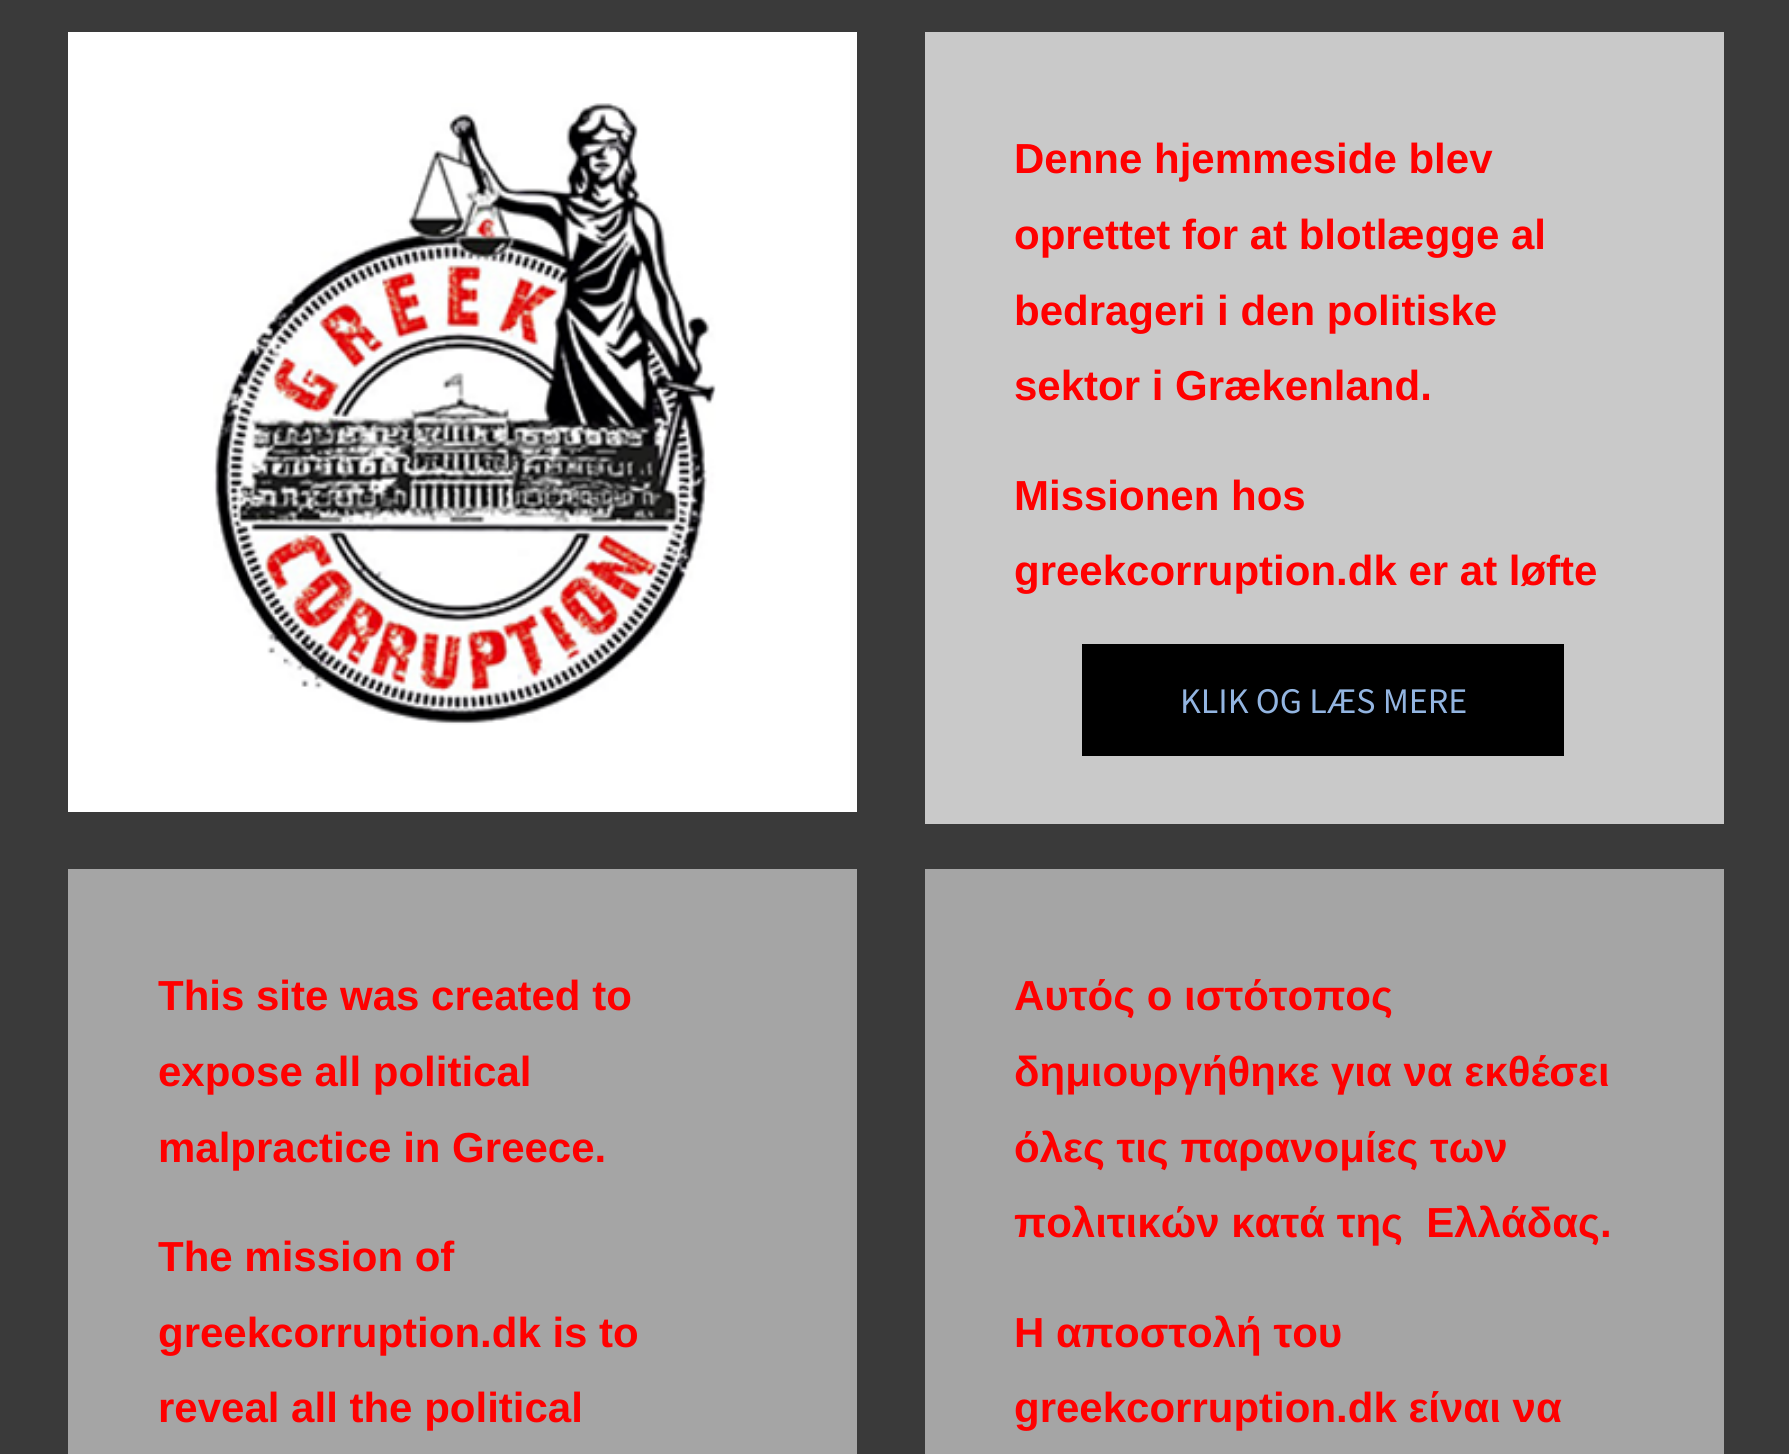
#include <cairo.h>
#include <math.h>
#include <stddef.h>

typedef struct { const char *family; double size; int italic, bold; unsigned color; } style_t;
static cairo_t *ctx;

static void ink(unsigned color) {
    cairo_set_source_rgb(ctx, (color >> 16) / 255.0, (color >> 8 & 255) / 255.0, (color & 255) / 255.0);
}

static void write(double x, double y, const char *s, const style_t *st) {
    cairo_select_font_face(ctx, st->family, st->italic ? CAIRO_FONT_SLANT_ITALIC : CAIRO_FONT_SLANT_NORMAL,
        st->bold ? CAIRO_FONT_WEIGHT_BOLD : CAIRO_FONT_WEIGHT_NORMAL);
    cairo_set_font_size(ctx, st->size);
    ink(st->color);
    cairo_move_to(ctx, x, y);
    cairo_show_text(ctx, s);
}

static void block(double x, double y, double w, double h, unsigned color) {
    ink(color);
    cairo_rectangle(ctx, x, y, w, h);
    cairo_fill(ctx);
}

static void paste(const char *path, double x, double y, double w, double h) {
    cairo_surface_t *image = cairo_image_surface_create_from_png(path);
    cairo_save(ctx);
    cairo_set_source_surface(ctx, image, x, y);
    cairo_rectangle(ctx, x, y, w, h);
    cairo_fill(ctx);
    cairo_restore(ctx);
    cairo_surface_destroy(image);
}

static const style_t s1 = {"Liberation Sans", 42, 0, 1, 0xff0000};
static const style_t s2 = {"Source Sans Pro", 36, 0, 0, 0x93b5e1};

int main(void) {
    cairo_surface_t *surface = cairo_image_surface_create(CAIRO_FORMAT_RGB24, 1789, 1454);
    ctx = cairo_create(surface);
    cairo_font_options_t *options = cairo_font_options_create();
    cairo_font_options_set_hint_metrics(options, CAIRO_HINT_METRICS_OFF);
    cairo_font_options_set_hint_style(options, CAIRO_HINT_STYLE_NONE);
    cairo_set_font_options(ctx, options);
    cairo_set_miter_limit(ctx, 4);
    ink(0x3a3a3a);
    cairo_paint(ctx);
    block(68, 32, 789, 780, 0xffffff);
    paste("pic1.png", 213, 103, 503, 622);
    block(925, 32, 799, 792, 0xc9c9c9);
    write(1014, 173, "Denne hjemmeside blev", &s1);
    write(1014, 249, "oprettet for at blotlægge al", &s1);
    write(1014, 325, "bedrageri i den politiske", &s1);
    write(1014, 400, "sektor i Grækenland.", &s1);
    write(1014, 510, "Missionen hos", &s1);
    write(1014, 585, "greekcorruption.dk er at løfte", &s1);
    block(1082, 644, 482, 112, 0x000000);
    write(1180, 713, "KLIK OG LÆS MERE", &s2);
    block(68, 869, 789, 585, 0xa5a5a5);
    write(158, 1010, "This site was created to", &s1);
    write(158, 1086, "expose all political", &s1);
    write(158, 1162, "malpractice in Greece.", &s1);
    write(158, 1271, "The mission of", &s1);
    write(158, 1347, "greekcorruption.dk is to", &s1);
    write(158, 1422, "reveal all the political", &s1);
    block(925, 869, 799, 585, 0xa5a5a5);
    write(1014, 1010, "Αυτός ο ιστότοπος", &s1);
    write(1014, 1086, "δημιουργήθηκε για να εκθέσει", &s1);
    write(1014, 1162, "όλες τις παρανομίες των", &s1);
    write(1014, 1237, "πολιτικών κατά της  Ελλάδας.", &s1);
    write(1014, 1347, "Η αποστολή του", &s1);
    write(1014, 1422, "greekcorruption.dk είναι να", &s1);
    cairo_surface_write_to_png(surface, "screenshot.png");
    cairo_font_options_destroy(options);
    cairo_destroy(ctx);
    cairo_surface_destroy(surface);
    return 0;
}
